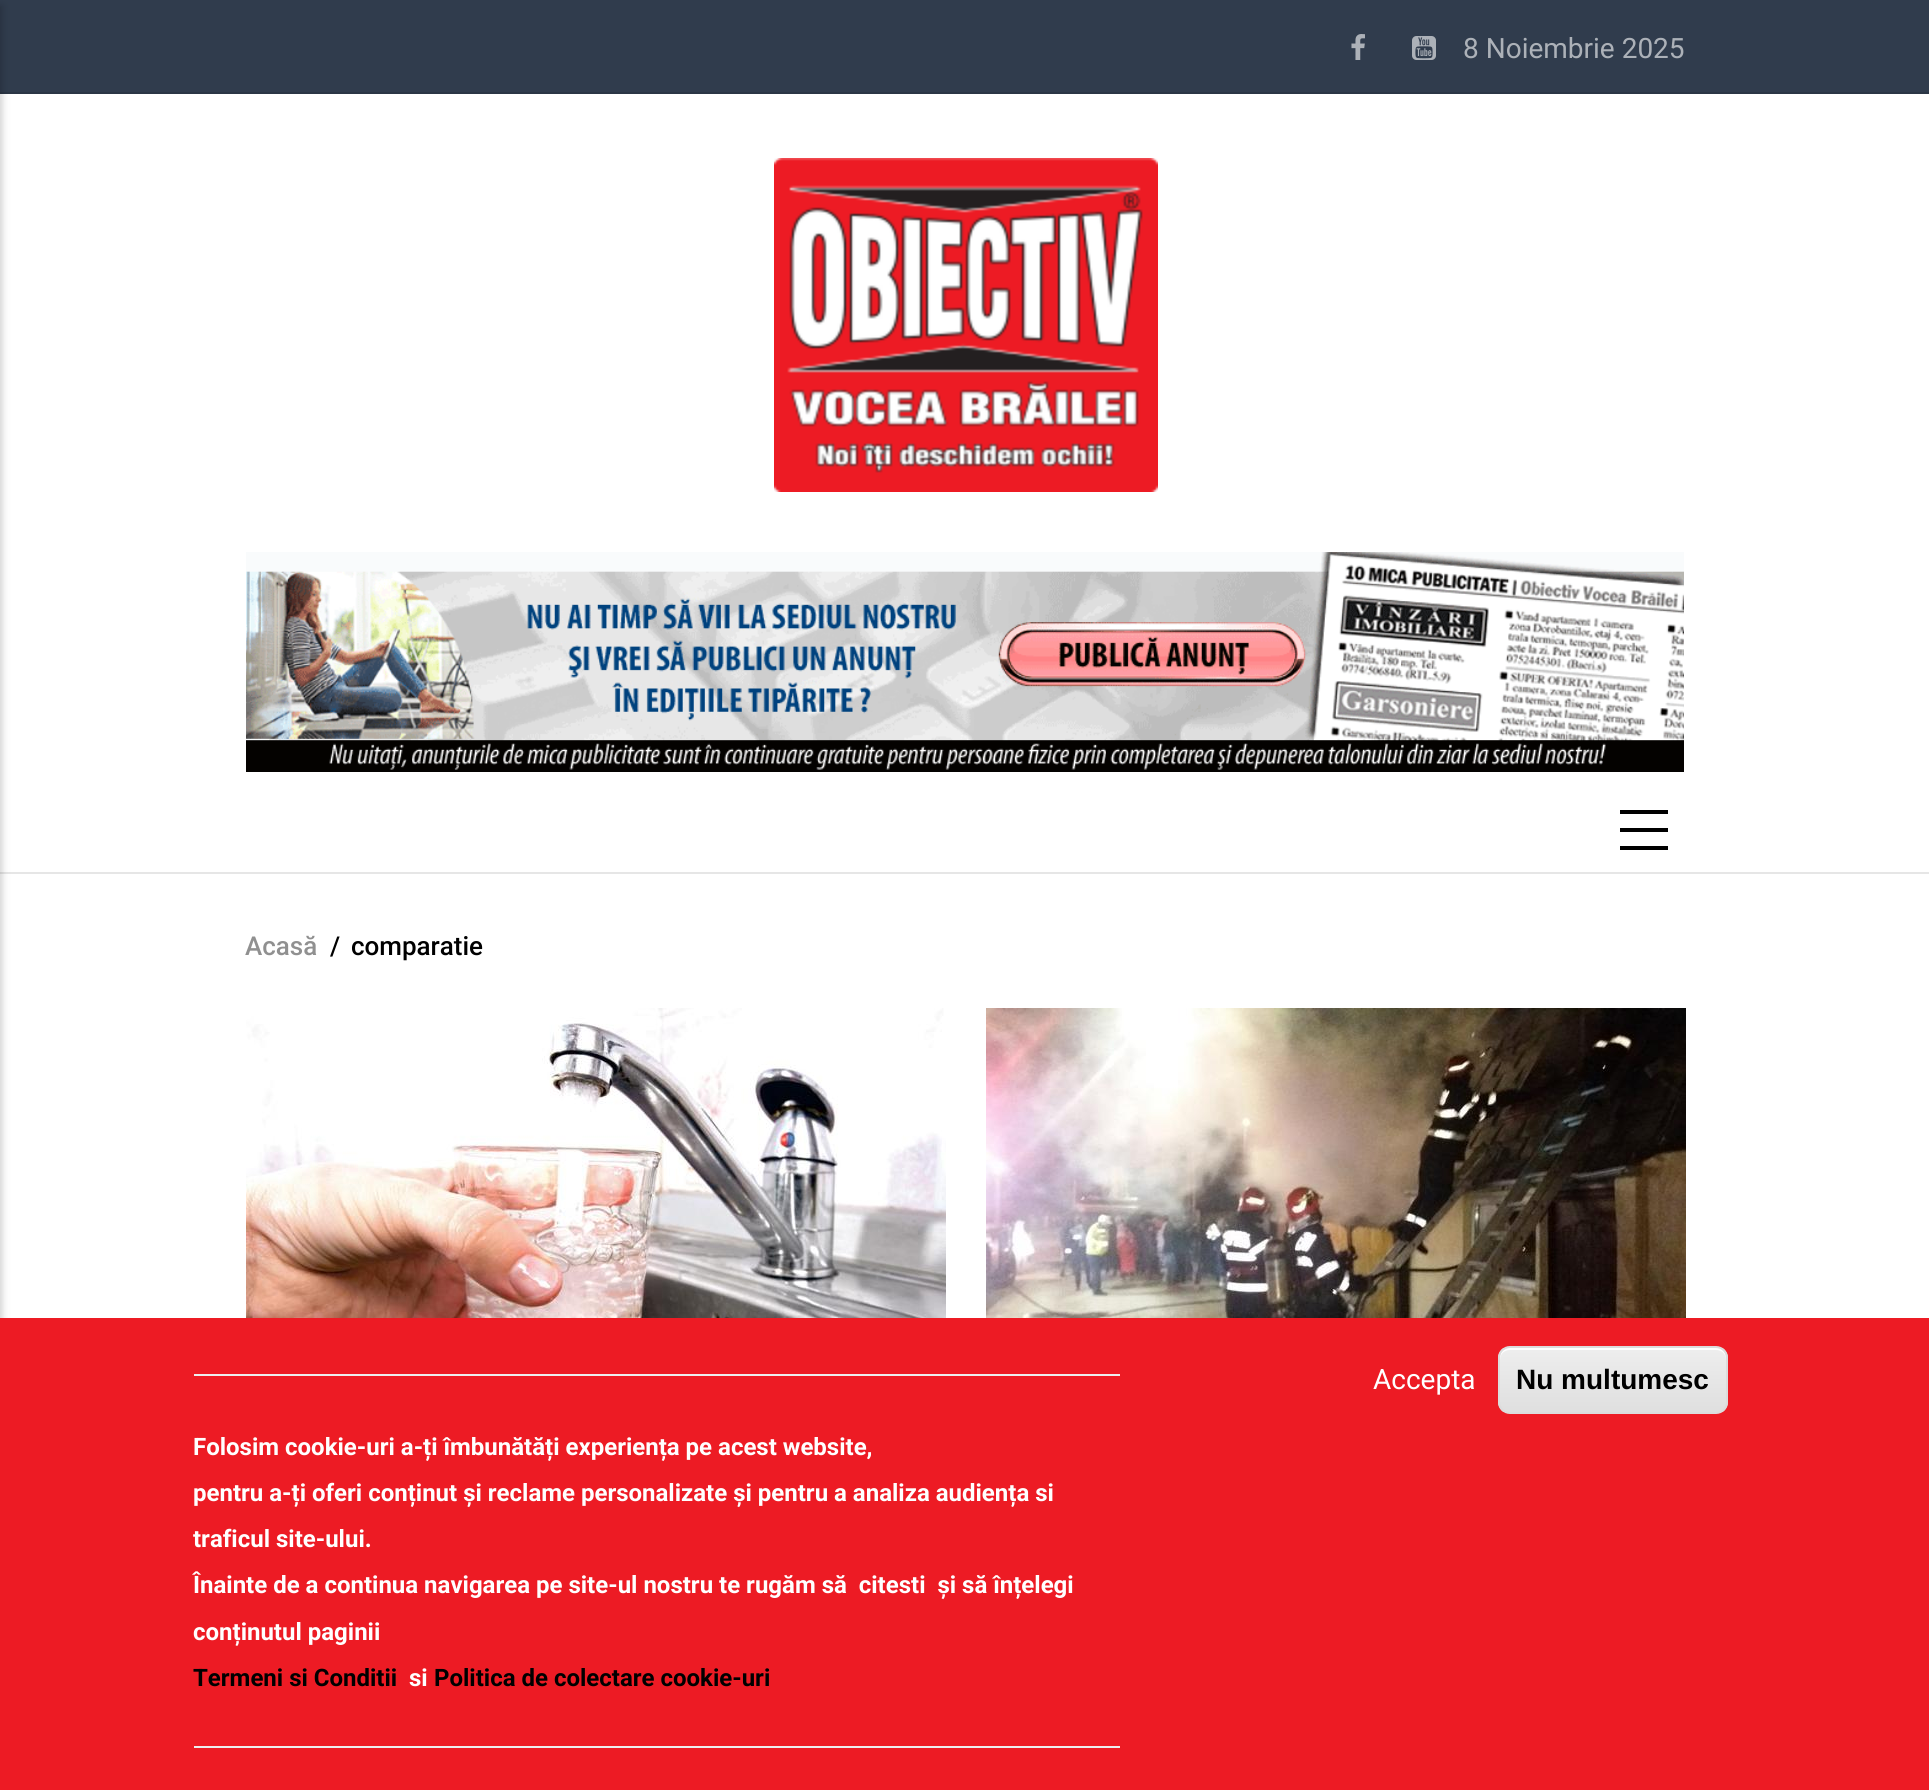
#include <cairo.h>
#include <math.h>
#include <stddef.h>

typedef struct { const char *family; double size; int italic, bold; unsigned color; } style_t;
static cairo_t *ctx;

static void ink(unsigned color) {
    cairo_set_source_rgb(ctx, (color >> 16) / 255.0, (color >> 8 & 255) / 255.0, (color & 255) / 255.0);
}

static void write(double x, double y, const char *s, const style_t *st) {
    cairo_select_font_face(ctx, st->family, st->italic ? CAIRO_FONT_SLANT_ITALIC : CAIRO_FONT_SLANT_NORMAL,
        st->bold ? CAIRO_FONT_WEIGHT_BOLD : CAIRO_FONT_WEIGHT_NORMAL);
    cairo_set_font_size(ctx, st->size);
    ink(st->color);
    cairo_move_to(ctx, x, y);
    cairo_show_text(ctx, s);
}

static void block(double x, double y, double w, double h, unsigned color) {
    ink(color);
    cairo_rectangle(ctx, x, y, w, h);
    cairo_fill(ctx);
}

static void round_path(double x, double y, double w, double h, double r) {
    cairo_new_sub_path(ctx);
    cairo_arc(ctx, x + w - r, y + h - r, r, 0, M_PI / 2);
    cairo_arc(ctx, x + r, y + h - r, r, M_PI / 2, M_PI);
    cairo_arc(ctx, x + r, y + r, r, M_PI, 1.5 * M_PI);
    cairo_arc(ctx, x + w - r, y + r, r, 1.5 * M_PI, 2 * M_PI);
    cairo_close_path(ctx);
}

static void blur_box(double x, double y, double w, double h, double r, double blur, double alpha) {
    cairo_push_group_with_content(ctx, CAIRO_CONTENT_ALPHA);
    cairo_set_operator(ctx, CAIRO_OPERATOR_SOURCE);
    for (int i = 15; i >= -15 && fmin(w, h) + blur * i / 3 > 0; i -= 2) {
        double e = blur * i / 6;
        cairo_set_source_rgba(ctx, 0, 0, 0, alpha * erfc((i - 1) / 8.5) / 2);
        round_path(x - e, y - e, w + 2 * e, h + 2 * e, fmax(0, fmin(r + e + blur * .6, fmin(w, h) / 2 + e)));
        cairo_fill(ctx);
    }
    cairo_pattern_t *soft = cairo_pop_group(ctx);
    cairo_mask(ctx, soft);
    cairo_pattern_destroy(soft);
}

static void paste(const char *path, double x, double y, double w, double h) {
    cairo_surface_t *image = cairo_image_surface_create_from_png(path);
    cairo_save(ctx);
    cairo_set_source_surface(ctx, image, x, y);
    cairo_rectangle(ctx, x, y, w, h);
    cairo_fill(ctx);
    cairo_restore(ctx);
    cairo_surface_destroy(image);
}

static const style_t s1 = {"Roboto", 28, 0, 0, 0xacb1b8};
static const style_t s2 = {"Roboto Medium", 26, 0, 0, 0x909090};
static const style_t s3 = {"Roboto Medium", 26, 0, 0, 0x000000};
static const style_t s4 = {"Roboto", 28, 0, 0, 0xffffff};
static const style_t s5 = {"Liberation Sans", 28, 0, 1, 0x000000};
static const style_t s6 = {"Roboto", 24, 0, 1, 0xffffff};
static const style_t s7 = {"Roboto", 24, 0, 1, 0x000000};

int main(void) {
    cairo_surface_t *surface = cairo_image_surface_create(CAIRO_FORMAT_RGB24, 1929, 1790);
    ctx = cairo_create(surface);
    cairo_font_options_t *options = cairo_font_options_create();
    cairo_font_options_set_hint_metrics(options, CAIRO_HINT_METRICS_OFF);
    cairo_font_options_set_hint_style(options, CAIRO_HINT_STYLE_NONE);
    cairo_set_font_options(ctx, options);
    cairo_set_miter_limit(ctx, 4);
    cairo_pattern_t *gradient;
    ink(0xffffff);
    cairo_paint(ctx);
    block(0, 872, 1929, 2, 0xe6e6e6);
    block(0, 0, 1929, 92, 0x303c4d);
    block(0, 92, 1929, 2, 0x2b3645);
    ink(0x000000);
    blur_box(-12, 6, 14, 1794, 0, 4, 0.2);
    block(1620, 810, 48, 4, 0x000000);
    block(1620, 828, 48, 4, 0x000000);
    block(1620, 846, 48, 4, 0x000000);
    paste("pic1.png", 1351, 34, 14, 26);
    paste("pic2.png", 1412, 36, 24, 24);
    write(1463, 58, "8 Noiembrie 2025", &s1);
    paste("pic3.png", 774, 158, 384, 334);
    paste("pic4.png", 246, 552, 1438, 220);
    write(245, 955, "Acasă", &s2);
    write(330, 955, "/", &s3);
    write(351, 955, "comparatie", &s3);
    paste("pic5.png", 246, 1008, 700, 310);
    paste("pic6.png", 986, 1008, 700, 310);
    block(0, 1318, 1929, 472, 0xed1b24);
    write(1373, 1389, "Accepta", &s4);
    cairo_save(ctx);
    round_path(1498, 1346, 230, 68, 12);
    cairo_clip(ctx);
    gradient = cairo_pattern_create_linear(1613, 1348, 1613, 1412);
    cairo_pattern_add_color_stop_rgba(gradient, 0.05, 0.929, 0.929, 0.929, 1);
    cairo_pattern_add_color_stop_rgba(gradient, 1, 0.875, 0.875, 0.875, 1);
    cairo_set_source(ctx, gradient);
    cairo_pattern_destroy(gradient);
    cairo_rectangle(ctx, 1498, 1348, 230, 64);
    cairo_fill(ctx);
    cairo_restore(ctx);
    cairo_new_path(ctx);
    cairo_move_to(ctx, 1510, 1350);
    cairo_line_to(ctx, 1716, 1350);
    cairo_curve_to(ctx, 1722, 1350, 1726, 1354, 1726, 1360);
    cairo_line_to(ctx, 1726, 1358);
    cairo_curve_to(ctx, 1726, 1352, 1722, 1348, 1716, 1348);
    cairo_line_to(ctx, 1510, 1348);
    cairo_curve_to(ctx, 1504, 1348, 1500, 1352, 1500, 1358);
    cairo_line_to(ctx, 1500, 1360);
    cairo_curve_to(ctx, 1500, 1354, 1504, 1350, 1510, 1350);
    cairo_close_path(ctx);
    cairo_fill(ctx);
    round_path(1499, 1347, 228, 66, 11);
    ink(0xdcdcdc);
    cairo_stroke(ctx);
    write(1516, 1389, "Nu multumesc", &s5);
    block(194, 1374, 926, 2, 0xeeeeee);
    write(193, 1455, "Folosim cookie-uri a-ți îmbunătăți experiența pe acest website,", &s6);
    write(193, 1501, "pentru a-ți oferi conținut și reclame personalizate și pentru a analiza audiența si", &s6);
    write(193, 1547, "traficul site-ului.", &s6);
    write(193, 1593, "Înainte de a continua navigarea pe site-ul nostru te rugăm să  citesti  și să înțelegi", &s6);
    write(193, 1640, "conținutul paginii", &s6);
    write(193, 1686, "Termeni si Conditii", &s7);
    write(409, 1686, "si", &s6);
    write(434, 1686, "Politica de colectare cookie-uri", &s7);
    block(194, 1746, 926, 2, 0xeeeeee);
    cairo_surface_write_to_png(surface, "screenshot.png");
    cairo_font_options_destroy(options);
    cairo_destroy(ctx);
    cairo_surface_destroy(surface);
    return 0;
}
